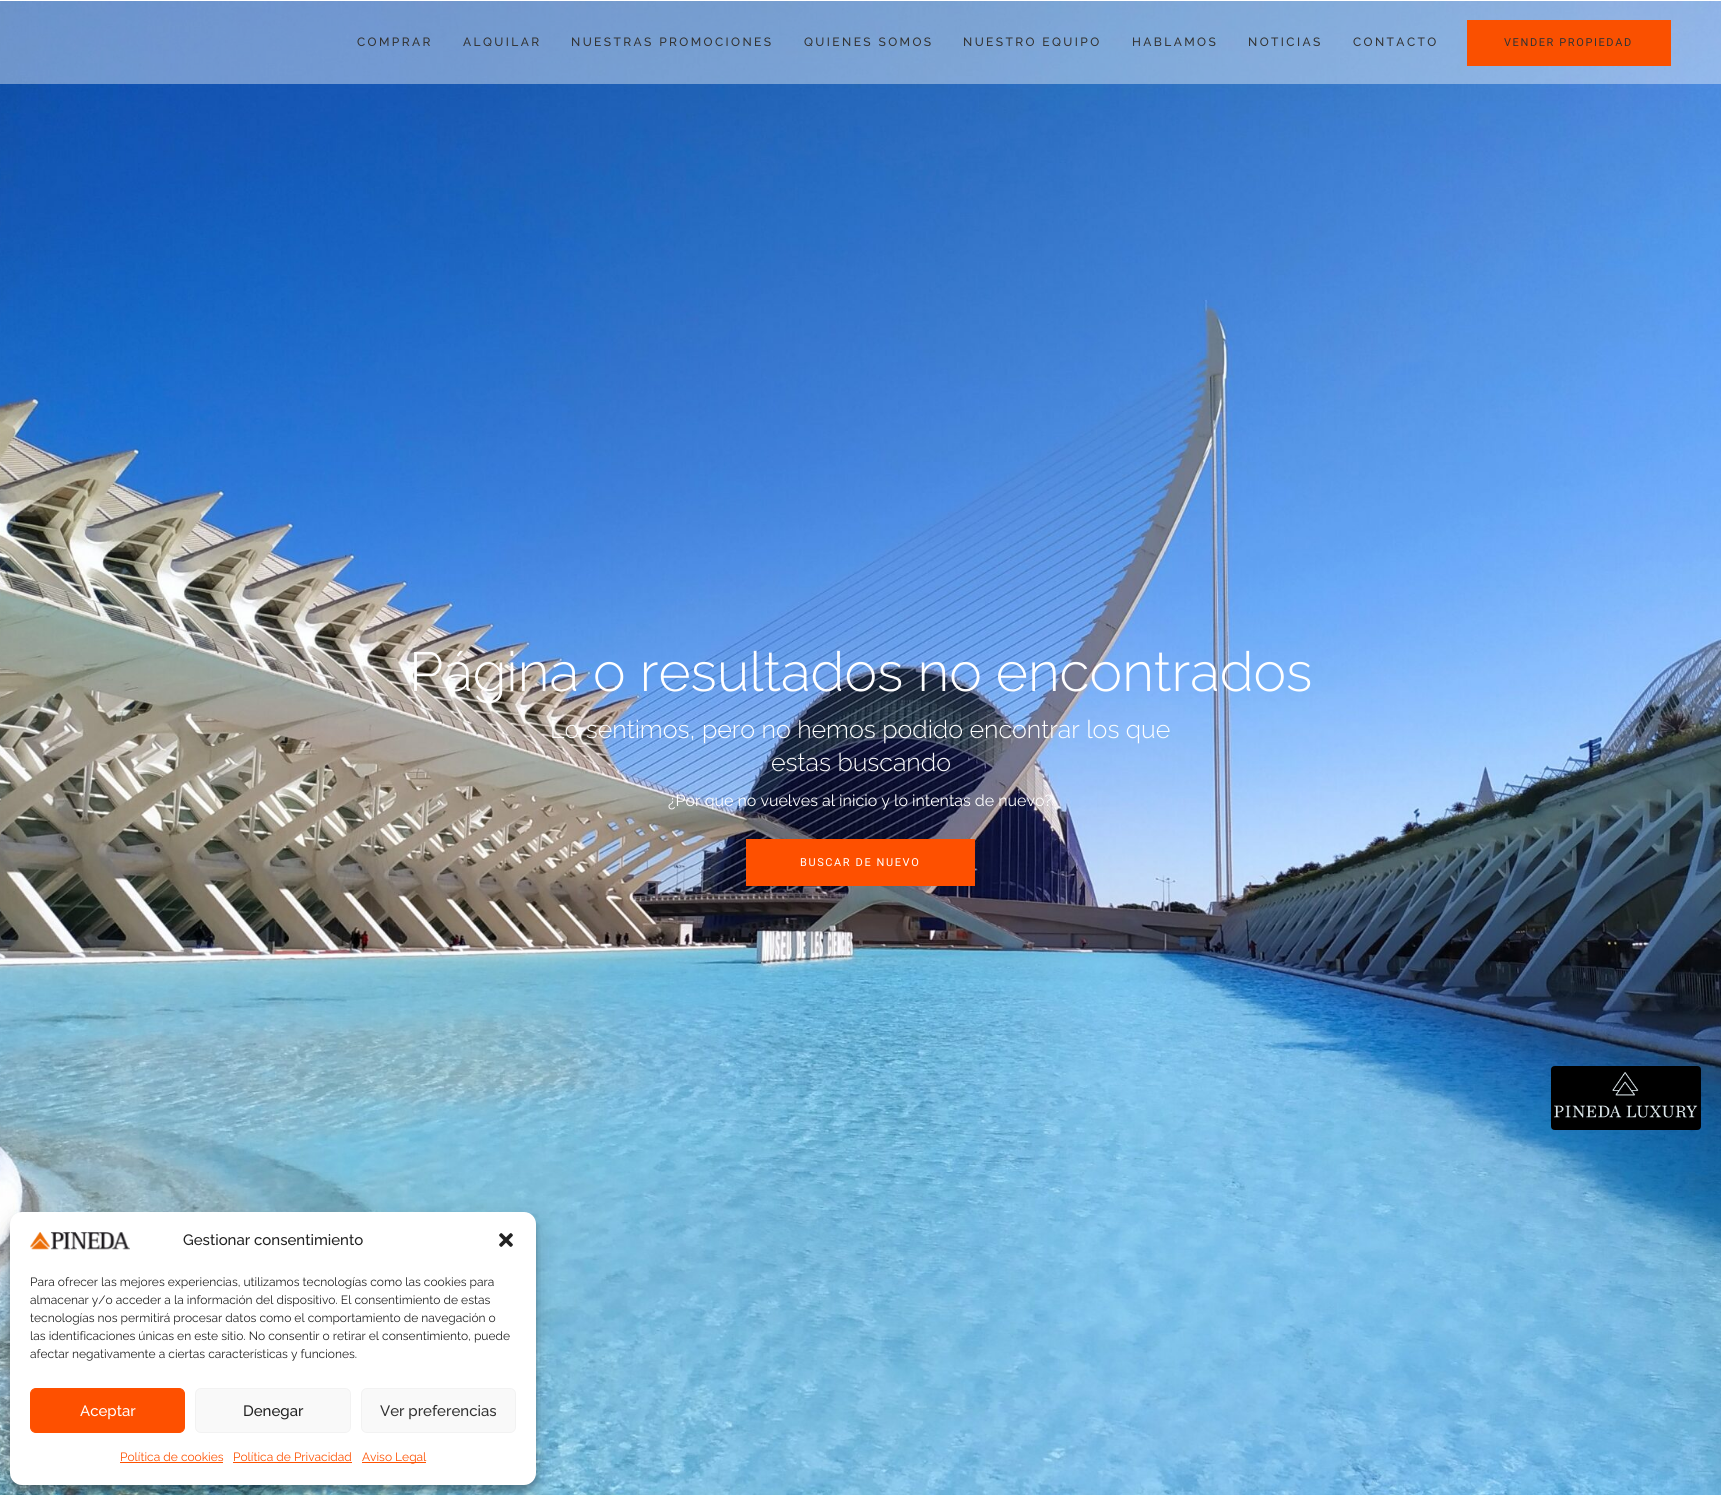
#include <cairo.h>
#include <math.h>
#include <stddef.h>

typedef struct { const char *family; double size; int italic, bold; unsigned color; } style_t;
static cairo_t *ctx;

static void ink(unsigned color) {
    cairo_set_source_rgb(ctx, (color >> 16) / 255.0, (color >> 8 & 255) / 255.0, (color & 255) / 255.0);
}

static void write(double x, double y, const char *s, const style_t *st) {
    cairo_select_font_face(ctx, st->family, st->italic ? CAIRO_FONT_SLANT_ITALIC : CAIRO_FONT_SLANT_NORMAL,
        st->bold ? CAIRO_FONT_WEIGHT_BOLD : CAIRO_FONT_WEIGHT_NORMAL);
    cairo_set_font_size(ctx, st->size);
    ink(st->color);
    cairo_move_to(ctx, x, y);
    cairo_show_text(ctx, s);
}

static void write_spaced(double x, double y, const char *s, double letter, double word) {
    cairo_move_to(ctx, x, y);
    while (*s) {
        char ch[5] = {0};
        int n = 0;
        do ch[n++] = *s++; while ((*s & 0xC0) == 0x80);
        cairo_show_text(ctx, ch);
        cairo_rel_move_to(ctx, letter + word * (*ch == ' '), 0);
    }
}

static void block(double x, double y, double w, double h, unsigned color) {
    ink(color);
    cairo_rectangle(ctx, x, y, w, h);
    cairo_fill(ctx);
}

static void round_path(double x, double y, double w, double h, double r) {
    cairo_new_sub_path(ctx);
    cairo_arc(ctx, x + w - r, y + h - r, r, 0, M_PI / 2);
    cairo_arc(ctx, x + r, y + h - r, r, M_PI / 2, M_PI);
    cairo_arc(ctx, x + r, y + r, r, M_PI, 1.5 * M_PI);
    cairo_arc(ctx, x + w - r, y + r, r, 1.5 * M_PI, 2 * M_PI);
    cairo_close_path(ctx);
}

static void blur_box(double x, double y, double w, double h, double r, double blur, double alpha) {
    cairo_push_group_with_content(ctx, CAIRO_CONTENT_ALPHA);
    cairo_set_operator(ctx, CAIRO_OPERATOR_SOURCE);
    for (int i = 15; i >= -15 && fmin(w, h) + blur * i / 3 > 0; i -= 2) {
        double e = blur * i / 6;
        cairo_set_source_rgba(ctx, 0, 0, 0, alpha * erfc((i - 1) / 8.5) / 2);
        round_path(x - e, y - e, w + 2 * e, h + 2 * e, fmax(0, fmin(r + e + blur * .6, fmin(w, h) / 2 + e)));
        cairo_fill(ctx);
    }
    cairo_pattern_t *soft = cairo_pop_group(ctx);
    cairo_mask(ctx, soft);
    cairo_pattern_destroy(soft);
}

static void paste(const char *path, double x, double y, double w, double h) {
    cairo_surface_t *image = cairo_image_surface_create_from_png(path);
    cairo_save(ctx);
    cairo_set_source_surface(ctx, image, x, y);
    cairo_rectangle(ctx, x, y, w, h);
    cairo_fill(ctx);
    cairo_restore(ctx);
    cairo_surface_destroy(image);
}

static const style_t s1 = {"Raleway Light", 55, 0, 0, 0xffffff};
static const style_t s2 = {"Raleway Light", 25, 0, 0, 0xffffff};
static const style_t s3 = {"Raleway", 16, 0, 0, 0xffffff};
static const style_t s4 = {"Raleway Medium", 15, 0, 0, 0x222222};
static const style_t s5 = {"Raleway", 12, 0, 0, 0x222222};
static const style_t s6 = {"Raleway Medium", 15, 0, 0, 0xffffff};
static const style_t s7 = {"Raleway Medium", 15, 0, 0, 0x333333};
static const style_t s8 = {"Raleway", 12, 0, 0, 0xfe5000};

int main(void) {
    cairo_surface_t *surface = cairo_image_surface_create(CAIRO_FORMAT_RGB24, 1721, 1495);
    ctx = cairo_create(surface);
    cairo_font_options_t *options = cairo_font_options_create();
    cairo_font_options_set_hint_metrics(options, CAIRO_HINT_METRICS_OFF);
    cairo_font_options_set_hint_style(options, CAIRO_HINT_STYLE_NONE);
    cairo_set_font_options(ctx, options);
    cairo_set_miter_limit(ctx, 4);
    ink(0xffffff);
    cairo_paint(ctx);
    paste("pic1.png", 0, 1, 1721, 1494);
    cairo_set_source_rgba(ctx, 1, 1, 1, 0.4);
    cairo_rectangle(ctx, 0, 1, 1721, 83);
    cairo_fill(ctx);
    cairo_select_font_face(ctx, "Raleway Medium", CAIRO_FONT_SLANT_NORMAL, CAIRO_FONT_WEIGHT_NORMAL);
    cairo_set_font_size(ctx, 12);
    ink(0x333333);
    write_spaced(357, 46, "COMPRAR", 2.4, 0);
    write_spaced(463, 46, "ALQUILAR", 2.4, 0);
    write_spaced(571, 46, "NUESTRAS PROMOCIONES", 2.4, 0);
    write_spaced(804, 46, "QUIENES SOMOS", 2.4, 0);
    write_spaced(963, 46, "NUESTRO EQUIPO", 2.4, 0);
    write_spaced(1132, 46, "HABLAMOS", 2.4, 0);
    write_spaced(1248, 46, "NOTICIAS", 2.4, 0);
    write_spaced(1353, 46, "CONTACTO", 2.4, 0);
    block(1467, 20, 204, 46, 0xfa5000);
    cairo_select_font_face(ctx, "Roboto", CAIRO_FONT_SLANT_NORMAL, CAIRO_FONT_WEIGHT_NORMAL);
    cairo_set_font_size(ctx, 11);
    ink(0x333333);
    write_spaced(1504, 46, "VENDER PROPIEDAD", 1.6, 0);
    write(409, 691, "Página o resultados no encontrados", &s1);
    write(550, 738, "Lo sentimos, pero no hemos podido encontrar los que", &s2);
    write(771, 771, "estas buscando", &s2);
    write(668, 806, "¿Por que no vuelves al inicio y lo intentas de nuevo?", &s3);
    block(746, 839, 229, 47, 0xfe5000);
    cairo_select_font_face(ctx, "Roboto", CAIRO_FONT_SLANT_NORMAL, CAIRO_FONT_WEIGHT_NORMAL);
    cairo_set_font_size(ctx, 11);
    ink(0xffffff);
    write_spaced(800, 866, "BUSCAR DE NUEVO", 1.6, 0);
    paste("pic2.png", 1551, 1066, 150, 64);
    ink(0x000000);
    blur_box(10, 1218, 526, 273, 12, 3, 0.23);
    blur_box(10, 1222, 526, 273, 12, 10, 0.19);
    ink(0xffffff);
    round_path(10, 1212, 526, 273, 12);
    cairo_fill(ctx);
    paste("pic3.png", 30, 1232, 100, 18);
    write(183, 1245, "Gestionar consentimiento", &s4);
    paste("pic4.png", 499, 1233, 14, 14);
    write(30, 1286, "Para ofrecer las mejores experiencias, utilizamos tecnologías como las cookies para", &s5);
    write(30, 1304, "almacenar y/o acceder a la información del dispositivo. El consentimiento de estas", &s5);
    write(30, 1322, "tecnologías nos permitirá procesar datos como el comportamiento de navegación o", &s5);
    write(30, 1340, "las identificaciones únicas en este sitio. No consentir o retirar el consentimiento, puede", &s5);
    write(30, 1358, "afectar negativamente a ciertas características y funciones.", &s5);
    ink(0xfe5000);
    round_path(30.5, 1388.5, 154, 44, 5.5);
    cairo_fill_preserve(ctx);
    cairo_set_line_width(ctx, 1);
    cairo_stroke(ctx);
    write(80, 1416, "Aceptar", &s6);
    ink(0xf9f9f9);
    round_path(195.5, 1388.5, 155, 44, 5.5);
    cairo_fill_preserve(ctx);
    ink(0xf2f2f2);
    cairo_stroke(ctx);
    write(243, 1416, "Denegar", &s4);
    ink(0xf9f9f9);
    round_path(361.5, 1388.5, 154, 44, 5.5);
    cairo_fill_preserve(ctx);
    ink(0xf2f2f2);
    cairo_stroke(ctx);
    write(380, 1416, "Ver preferencias", &s7);
    write(120, 1461, "Política de cookies", &s8);
    block(120, 1462, 103, 1, 0xfe5000);
    write(233, 1461, "Política de Privacidad", &s8);
    block(233, 1462, 119, 1, 0xfe5000);
    block(362, 1462, 64, 1, 0xfe5000);
    write(362, 1461, "Aviso Legal", &s8);
    cairo_surface_write_to_png(surface, "screenshot.png");
    cairo_font_options_destroy(options);
    cairo_destroy(ctx);
    cairo_surface_destroy(surface);
    return 0;
}
